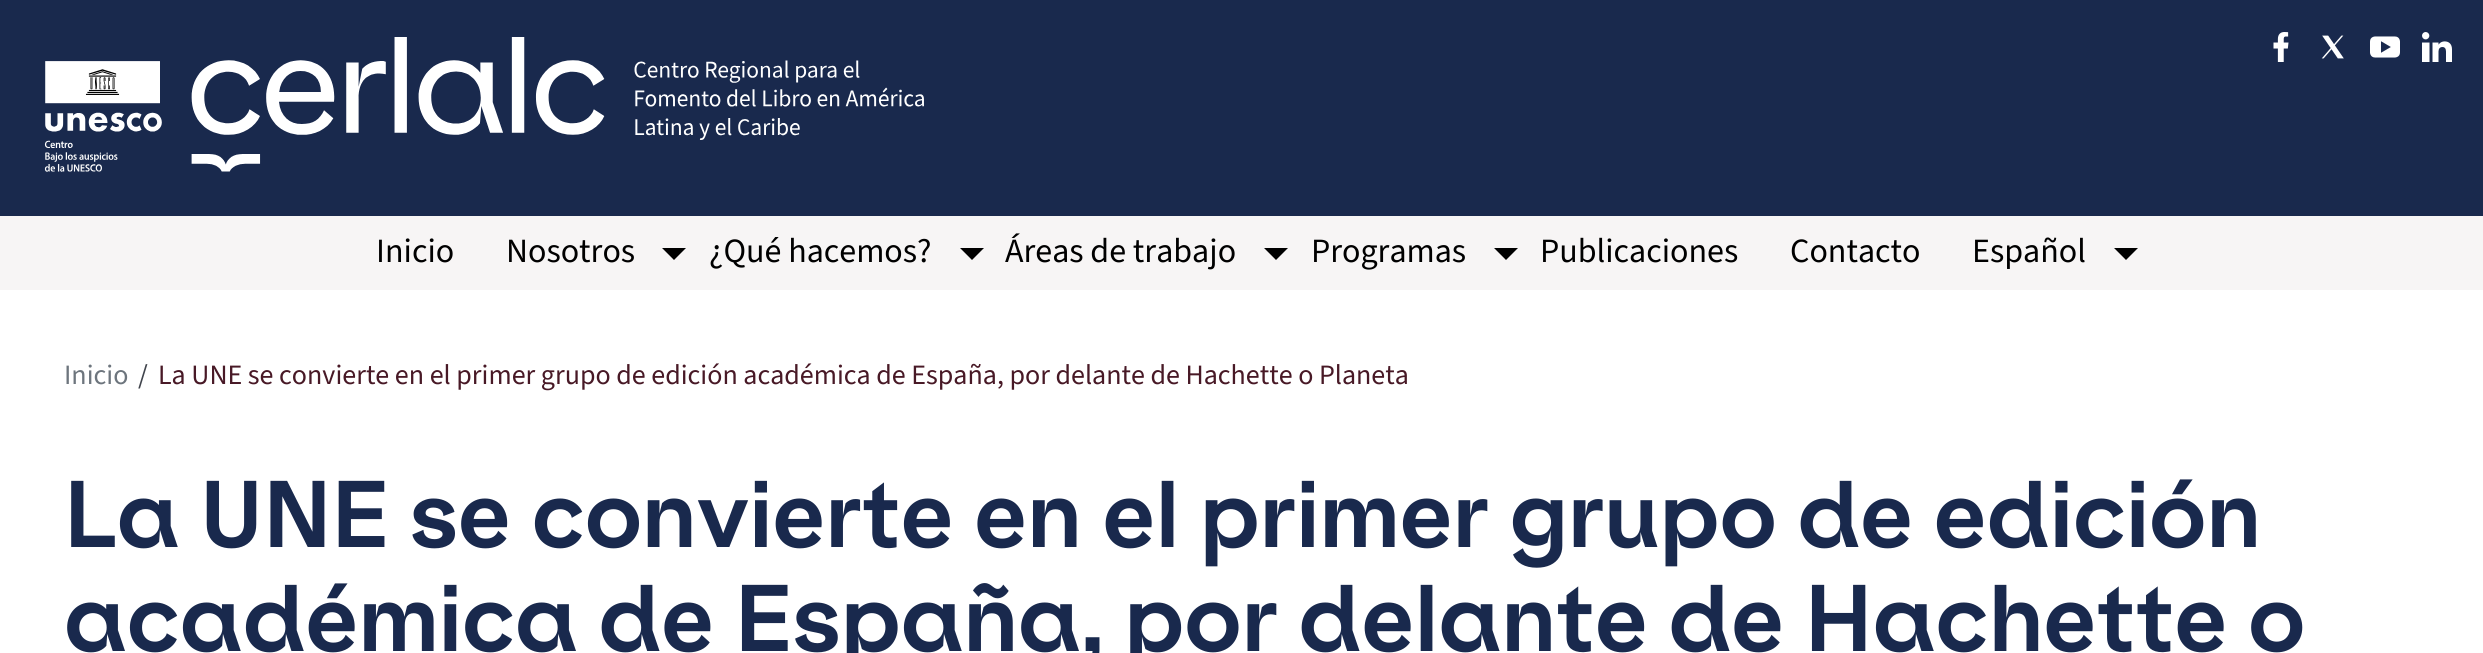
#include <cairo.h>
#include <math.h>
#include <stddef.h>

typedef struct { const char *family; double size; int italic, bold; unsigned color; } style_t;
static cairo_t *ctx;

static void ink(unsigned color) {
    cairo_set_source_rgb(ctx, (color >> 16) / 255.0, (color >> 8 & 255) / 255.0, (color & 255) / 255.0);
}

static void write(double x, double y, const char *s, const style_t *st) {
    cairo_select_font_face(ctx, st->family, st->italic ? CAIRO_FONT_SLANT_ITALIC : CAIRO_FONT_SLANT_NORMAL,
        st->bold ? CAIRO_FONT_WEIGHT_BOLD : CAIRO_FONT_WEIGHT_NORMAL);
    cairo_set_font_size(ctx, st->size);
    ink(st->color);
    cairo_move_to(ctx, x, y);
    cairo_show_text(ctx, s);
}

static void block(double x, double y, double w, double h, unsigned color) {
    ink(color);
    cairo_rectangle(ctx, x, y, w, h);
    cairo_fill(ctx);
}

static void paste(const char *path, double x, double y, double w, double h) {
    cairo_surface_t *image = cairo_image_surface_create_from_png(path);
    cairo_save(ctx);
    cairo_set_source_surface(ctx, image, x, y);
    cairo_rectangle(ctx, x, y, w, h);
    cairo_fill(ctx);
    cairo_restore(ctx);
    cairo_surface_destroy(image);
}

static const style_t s1 = {"Source Sans 3", 34, 0, 0, 0x000000};
static const style_t s2 = {"Source Sans 3", 28, 0, 0, 0x6d757d};
static const style_t s3 = {"Source Sans 3", 28, 0, 0, 0x40444c};
static const style_t s4 = {"Source Sans 3", 28, 0, 0, 0x481926};
static const style_t s5 = {"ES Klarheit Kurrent", 90, 0, 1, 0x19294d};

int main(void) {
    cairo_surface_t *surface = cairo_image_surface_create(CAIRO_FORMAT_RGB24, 2483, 653);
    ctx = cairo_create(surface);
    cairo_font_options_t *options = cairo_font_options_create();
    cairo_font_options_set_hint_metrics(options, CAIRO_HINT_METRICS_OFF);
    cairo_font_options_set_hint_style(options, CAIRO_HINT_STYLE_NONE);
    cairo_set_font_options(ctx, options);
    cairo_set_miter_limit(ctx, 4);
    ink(0xffffff);
    cairo_paint(ctx);
    block(0, 0, 2483, 216, 0x19294d);
    paste("pic1.png", 44, 37, 880, 135);
    paste("pic2.png", 2273, 32, 16, 30);
    paste("pic3.png", 2321, 35, 23, 24);
    paste("pic4.png", 2370, 36, 30, 22);
    paste("pic5.png", 2422, 32, 30, 30);
    block(0, 216, 2483, 74, 0xf7f5f5);
    write(376, 262, "Inicio", &s1);
    write(506, 262, "Nosotros", &s1);
    cairo_new_path(ctx);
    cairo_move_to(ctx, 662, 248);
    cairo_line_to(ctx, 686, 248);
    cairo_line_to(ctx, 674, 260);
    cairo_close_path(ctx);
    cairo_fill(ctx);
    write(709, 262, "¿Qué hacemos?", &s1);
    cairo_new_path(ctx);
    cairo_move_to(ctx, 960, 248);
    cairo_line_to(ctx, 984, 248);
    cairo_line_to(ctx, 972, 260);
    cairo_close_path(ctx);
    cairo_fill(ctx);
    write(1005, 262, "Áreas de trabajo", &s1);
    cairo_new_path(ctx);
    cairo_move_to(ctx, 1264, 248);
    cairo_line_to(ctx, 1288, 248);
    cairo_line_to(ctx, 1276, 260);
    cairo_close_path(ctx);
    cairo_fill(ctx);
    write(1311, 262, "Programas", &s1);
    cairo_new_path(ctx);
    cairo_move_to(ctx, 1494, 248);
    cairo_line_to(ctx, 1518, 248);
    cairo_line_to(ctx, 1506, 260);
    cairo_close_path(ctx);
    cairo_fill(ctx);
    write(1540, 262, "Publicaciones", &s1);
    write(1790, 262, "Contacto", &s1);
    write(1972, 262, "Español", &s1);
    cairo_new_path(ctx);
    cairo_move_to(ctx, 2114, 248);
    cairo_line_to(ctx, 2138, 248);
    cairo_line_to(ctx, 2126, 260);
    cairo_close_path(ctx);
    cairo_fill(ctx);
    write(64, 384, "Inicio", &s2);
    write(138, 384, "/", &s3);
    write(158, 384, "La UNE se convierte en el primer grupo de edición académica de España, por delante de Hachette o Planeta", &s4);
    write(64, 547, "La UNE se convierte en el primer grupo de edición", &s5);
    write(64, 651, "académica de España, por delante de Hachette o", &s5);
    cairo_surface_write_to_png(surface, "screenshot.png");
    cairo_font_options_destroy(options);
    cairo_destroy(ctx);
    cairo_surface_destroy(surface);
    return 0;
}
